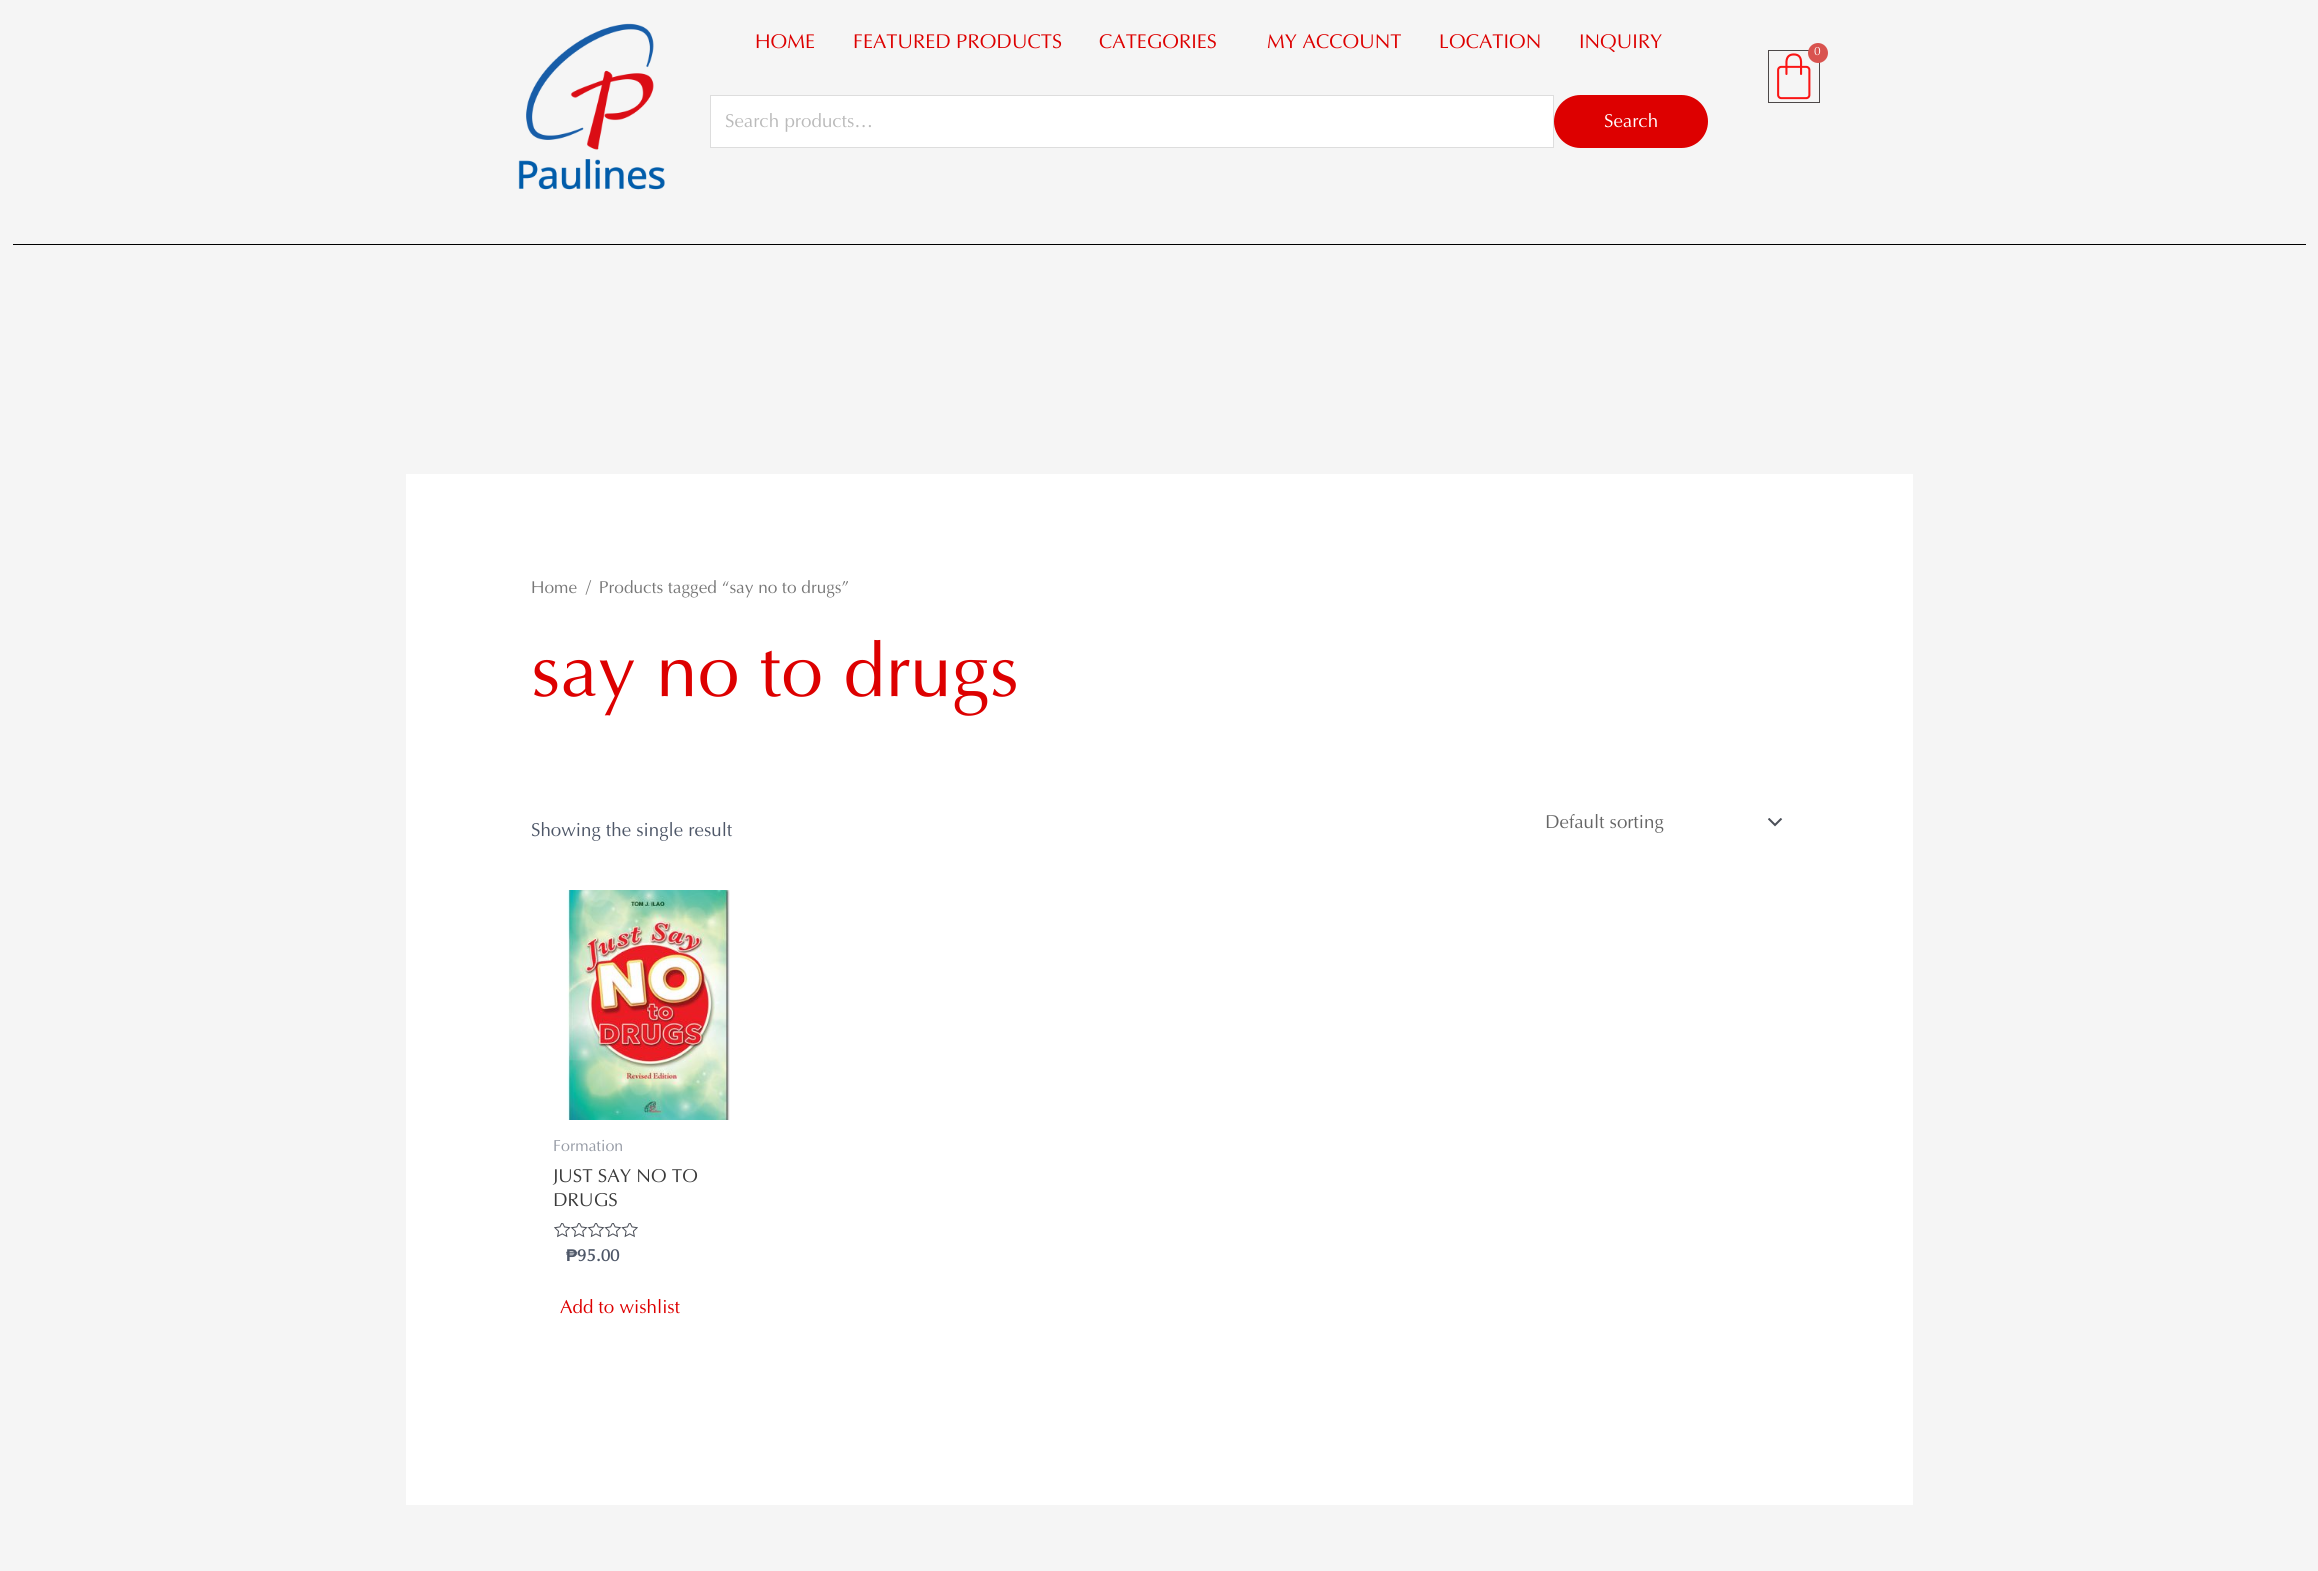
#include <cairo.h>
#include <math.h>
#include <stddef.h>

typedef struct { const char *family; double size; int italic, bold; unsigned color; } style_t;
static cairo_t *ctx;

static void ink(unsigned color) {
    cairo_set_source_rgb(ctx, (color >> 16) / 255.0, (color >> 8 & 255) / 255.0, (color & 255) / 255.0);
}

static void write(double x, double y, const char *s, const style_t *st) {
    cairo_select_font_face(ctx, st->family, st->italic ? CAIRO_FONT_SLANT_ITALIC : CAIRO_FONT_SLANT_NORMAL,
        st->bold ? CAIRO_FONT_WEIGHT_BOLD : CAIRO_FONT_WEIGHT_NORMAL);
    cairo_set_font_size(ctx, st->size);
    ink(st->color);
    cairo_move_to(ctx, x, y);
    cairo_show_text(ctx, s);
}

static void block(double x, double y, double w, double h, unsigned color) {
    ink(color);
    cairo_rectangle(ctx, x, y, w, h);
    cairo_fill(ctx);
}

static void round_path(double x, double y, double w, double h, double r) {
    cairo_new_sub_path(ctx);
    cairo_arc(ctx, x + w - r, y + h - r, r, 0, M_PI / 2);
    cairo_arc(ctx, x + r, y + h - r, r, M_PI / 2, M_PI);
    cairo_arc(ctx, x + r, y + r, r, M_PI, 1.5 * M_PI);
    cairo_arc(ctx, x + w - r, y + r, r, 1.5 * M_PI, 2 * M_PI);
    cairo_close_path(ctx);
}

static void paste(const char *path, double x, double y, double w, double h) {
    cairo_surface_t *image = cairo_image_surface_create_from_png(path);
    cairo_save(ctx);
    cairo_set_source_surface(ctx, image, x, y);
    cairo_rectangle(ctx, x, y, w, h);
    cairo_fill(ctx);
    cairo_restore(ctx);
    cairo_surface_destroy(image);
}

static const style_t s1 = {"Optima", 20, 0, 0, 0xdd0000};
static const style_t s2 = {"Optima", 18.75, 0, 0, 0xbababa};
static const style_t s3 = {"Optima", 18.75, 0, 0, 0xffffff};
static const style_t s4 = {"Optima", 12, 0, 0, 0xffffff};
static const style_t s5 = {"Optima", 17.25, 0, 0, 0x777777};
static const style_t s6 = {"Optima", 75, 0, 0, 0xdd0000};
static const style_t s7 = {"Optima", 18.75, 0, 0, 0x4e5768};
static const style_t s8 = {"Optima", 18.75, 0, 0, 0x666666};
static const style_t s9 = {"Optima", 16, 0, 0, 0x959aa4};
static const style_t s10 = {"Optima", 18.75, 0, 0, 0x3a3a3a};
static const style_t s11 = {"Liberation Sans", 17, 0, 1, 0x4e5768};
static const style_t s12 = {"Optima", 17, 0, 1, 0x4e5768};
static const style_t s13 = {"Optima", 18.75, 0, 0, 0xdd0000};

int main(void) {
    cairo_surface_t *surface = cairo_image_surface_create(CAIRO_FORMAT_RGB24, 2318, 1571);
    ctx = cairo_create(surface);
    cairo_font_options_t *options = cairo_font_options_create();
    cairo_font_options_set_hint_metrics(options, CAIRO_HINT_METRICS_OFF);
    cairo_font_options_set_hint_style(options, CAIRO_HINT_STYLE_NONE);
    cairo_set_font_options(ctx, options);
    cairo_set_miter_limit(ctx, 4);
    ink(0xf5f5f5);
    cairo_paint(ctx);
    paste("pic1.png", 518, 23, 147, 167);
    write(755, 48, "HOME", &s1);
    write(853, 48, "FEATURED PRODUCTS", &s1);
    write(1099, 48, "CATEGORIES", &s1);
    write(1267, 48, "MY ACCOUNT", &s1);
    write(1439, 48, "LOCATION", &s1);
    write(1579, 48, "INQUIRY", &s1);
    ink(0xffffff);
    cairo_rectangle(ctx, 710.5, 95.5, 843, 52);
    cairo_fill_preserve(ctx);
    ink(0xdddddd);
    cairo_set_line_width(ctx, 1);
    cairo_stroke(ctx);
    write(725, 127, "Search products…", &s2);
    ink(0xdd0000);
    round_path(1554, 95, 154, 53, 26.5);
    cairo_fill(ctx);
    write(1604, 127, "Search", &s3);
    cairo_rectangle(ctx, 1768.5, 50.5, 51, 52);
    ink(0x4d4848);
    cairo_stroke(ctx);
    paste("pic2.png", 1777, 53, 34, 47);
    ink(0xd9534f);
    cairo_arc(ctx, 1818, 53, 10, 0, 2 * M_PI);
    cairo_fill(ctx);
    write(1814, 55, "0", &s4);
    block(13, 244, 2293, 1, 0x000000);
    block(406, 474, 1507, 1031, 0xffffff);
    write(531, 593, "Home", &s5);
    write(586, 593, "/", &s5);
    write(599, 593, "Products tagged “say no to drugs”", &s5);
    write(531, 696, "say no to drugs", &s6);
    write(531, 836, "Showing the single result", &s7);
    paste("pic3.png", 1768, 818, 15, 9);
    write(1545, 828, "Default sorting", &s8);
    paste("pic4.png", 567, 890, 163, 230);
    write(553, 1151, "Formation", &s9);
    write(553, 1182, "JUST SAY NO TO", &s10);
    write(553, 1206, "DRUGS", &s10);
    paste("pic5.png", 554, 1223, 84, 15);
    write(566, 1261, "₱", &s11);
    write(577, 1261, "95.00", &s12);
    write(560, 1313, "Add to wishlist", &s13);
    cairo_surface_write_to_png(surface, "screenshot.png");
    cairo_font_options_destroy(options);
    cairo_destroy(ctx);
    cairo_surface_destroy(surface);
    return 0;
}
